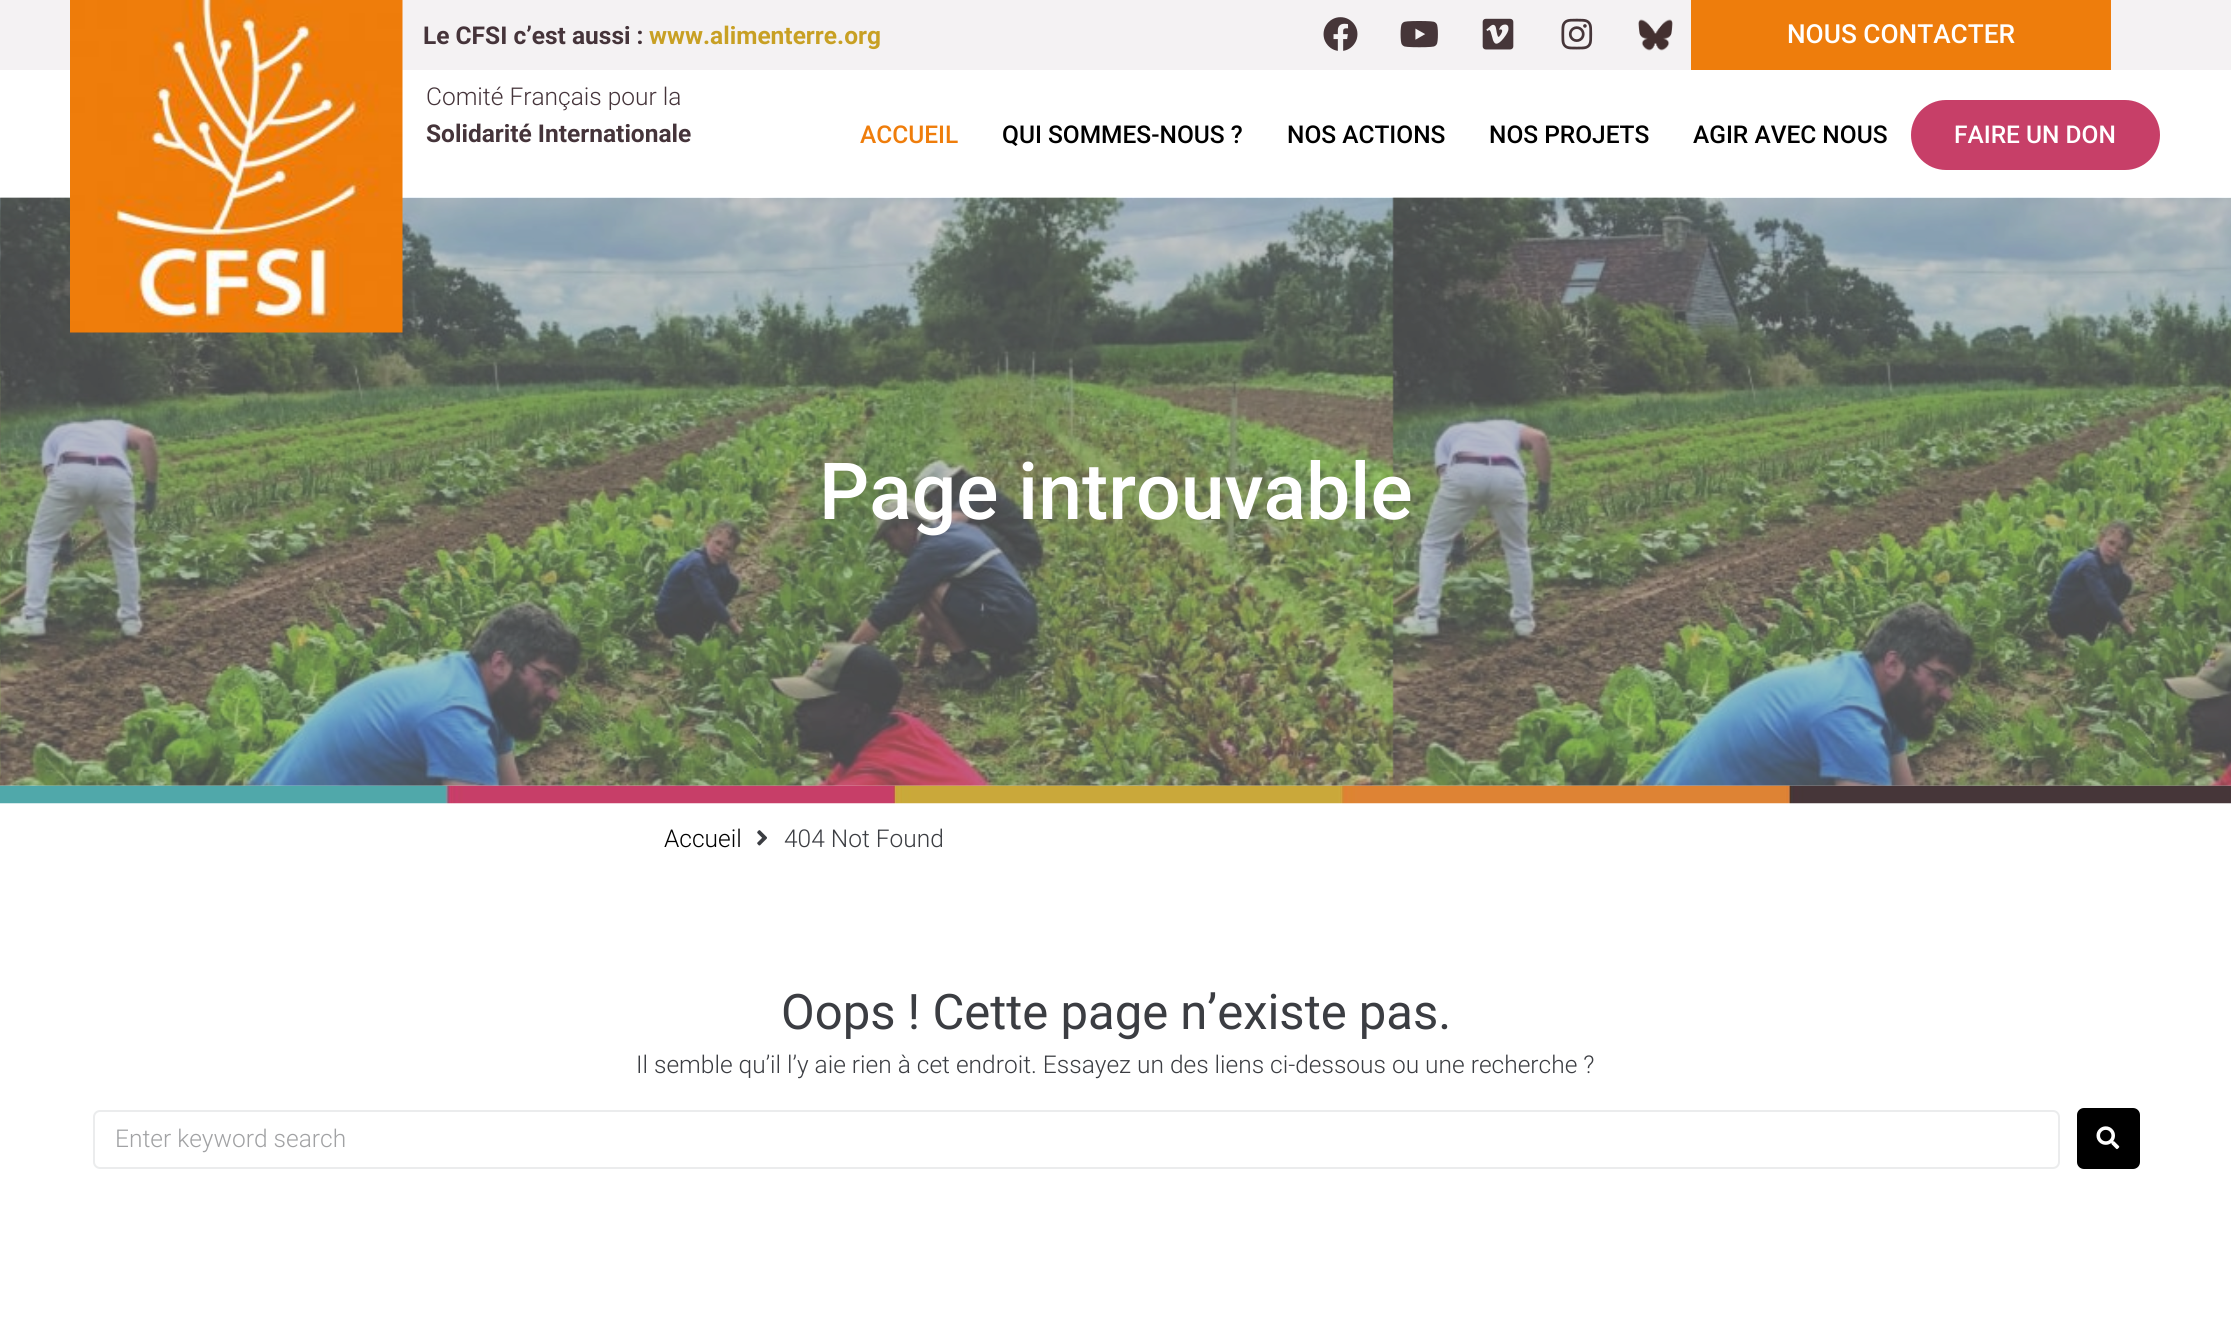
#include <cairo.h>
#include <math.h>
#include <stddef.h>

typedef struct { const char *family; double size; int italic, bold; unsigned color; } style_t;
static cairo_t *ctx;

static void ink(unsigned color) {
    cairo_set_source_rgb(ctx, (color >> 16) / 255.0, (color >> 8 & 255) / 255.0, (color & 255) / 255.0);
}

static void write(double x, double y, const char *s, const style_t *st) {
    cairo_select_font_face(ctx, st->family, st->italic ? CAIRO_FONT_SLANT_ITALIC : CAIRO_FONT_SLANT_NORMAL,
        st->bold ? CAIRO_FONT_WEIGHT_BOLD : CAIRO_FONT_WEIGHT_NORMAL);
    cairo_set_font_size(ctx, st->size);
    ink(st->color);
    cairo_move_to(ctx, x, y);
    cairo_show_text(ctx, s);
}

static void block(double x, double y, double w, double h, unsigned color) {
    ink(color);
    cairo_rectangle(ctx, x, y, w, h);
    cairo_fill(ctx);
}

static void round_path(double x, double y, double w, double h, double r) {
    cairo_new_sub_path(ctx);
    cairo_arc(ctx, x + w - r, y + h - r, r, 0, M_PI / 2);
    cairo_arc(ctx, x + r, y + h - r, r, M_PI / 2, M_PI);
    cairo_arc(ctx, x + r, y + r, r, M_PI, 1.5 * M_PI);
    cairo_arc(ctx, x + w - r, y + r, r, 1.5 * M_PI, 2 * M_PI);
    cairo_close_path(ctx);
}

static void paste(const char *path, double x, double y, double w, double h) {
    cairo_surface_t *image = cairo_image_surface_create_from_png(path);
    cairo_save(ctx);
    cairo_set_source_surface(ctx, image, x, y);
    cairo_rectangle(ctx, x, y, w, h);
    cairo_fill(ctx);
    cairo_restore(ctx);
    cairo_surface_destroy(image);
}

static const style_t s1 = {"Roboto", 24.5, 0, 1, 0x45343a};
static const style_t s2 = {"Roboto", 24.5, 0, 1, 0xc8a024};
static const style_t s3 = {"Roboto Medium", 26.25, 0, 0, 0xffffff};
static const style_t s4 = {"Roboto Light", 24.5, 0, 0, 0x45343a};
static const style_t s5 = {"Roboto Medium", 24.5, 0, 0, 0xef7d0b};
static const style_t s6 = {"Roboto Medium", 24.5, 0, 0, 0x000000};
static const style_t s7 = {"Roboto Medium", 24.5, 0, 0, 0xffffff};
static const style_t s8 = {"Roboto Medium", 78.75, 0, 0, 0xffffff};
static const style_t s9 = {"Roboto Light", 24.5, 0, 0, 0x000000};
static const style_t s10 = {"Roboto Light", 24.5, 0, 0, 0x3b3d42};
static const style_t s11 = {"Roboto", 49, 0, 0, 0x3b3d42};
static const style_t s12 = {"Roboto Light", 24.5, 0, 0, 0xa1a2a4};

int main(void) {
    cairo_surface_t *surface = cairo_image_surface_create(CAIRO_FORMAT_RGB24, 2231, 1325);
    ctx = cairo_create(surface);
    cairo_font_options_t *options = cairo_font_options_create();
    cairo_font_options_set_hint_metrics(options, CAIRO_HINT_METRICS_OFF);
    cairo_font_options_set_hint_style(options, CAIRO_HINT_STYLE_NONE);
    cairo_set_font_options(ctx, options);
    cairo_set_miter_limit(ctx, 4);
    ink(0xffffff);
    cairo_paint(ctx);
    block(0, 0, 2231, 70, 0xf4f2f3);
    paste("pic7.png", 0, 197, 2231, 589);
    paste("pic1.png", 70, 0, 333, 333);
    write(423, 44, "Le CFSI c’est aussi :", &s1);
    write(649, 44, "www.alimenterre.org", &s2);
    paste("pic2.png", 1323, 17, 35, 34);
    paste("pic3.png", 1400, 21, 38, 27);
    paste("pic4.png", 1482, 18, 32, 32);
    paste("pic5.png", 1561, 18, 32, 32);
    paste("pic6.png", 1638, 19, 35, 32);
    block(1691, 0, 420, 70, 0xee7d0c);
    write(1787, 43, "NOUS CONTACTER", &s3);
    write(426, 105, "Comité Français pour la", &s4);
    write(426, 142, "Solidarité Internationale", &s1);
    write(860, 143, "ACCUEIL", &s5);
    write(1002, 143, "QUI SOMMES-NOUS ?", &s6);
    write(1287, 143, "NOS ACTIONS", &s6);
    write(1489, 143, "NOS PROJETS", &s6);
    write(1693, 143, "AGIR AVEC NOUS", &s6);
    ink(0xc73f68);
    round_path(1912, 101, 247, 68, 34);
    cairo_fill_preserve(ctx);
    cairo_stroke(ctx);
    write(1954, 143, "FAIRE UN DON", &s7);
    write(819, 519, "Page introuvable", &s8);
    paste("pic8.png", 0, 785, 2231, 19);
    write(664, 847, "Accueil", &s9);
    paste("pic9.png", 757, 830, 10, 16);
    write(784, 847, "404 Not Found", &s10);
    write(781, 1029, "Oops ! Cette page n’existe pas.", &s11);
    write(636, 1073, "Il semble qu’il l’y aie rien à cet endroit. Essayez un des liens ci-dessous ou une recherche ?", &s10);
    round_path(94, 1111, 1965, 57, 6);
    ink(0xebeced);
    cairo_stroke(ctx);
    write(115, 1147, "Enter keyword search", &s12);
    ink(0x000000);
    round_path(2077, 1108, 63, 61, 7);
    cairo_fill(ctx);
    paste("pic10.png", 2096, 1126, 24, 24);
    cairo_surface_write_to_png(surface, "screenshot.png");
    cairo_font_options_destroy(options);
    cairo_destroy(ctx);
    cairo_surface_destroy(surface);
    return 0;
}
